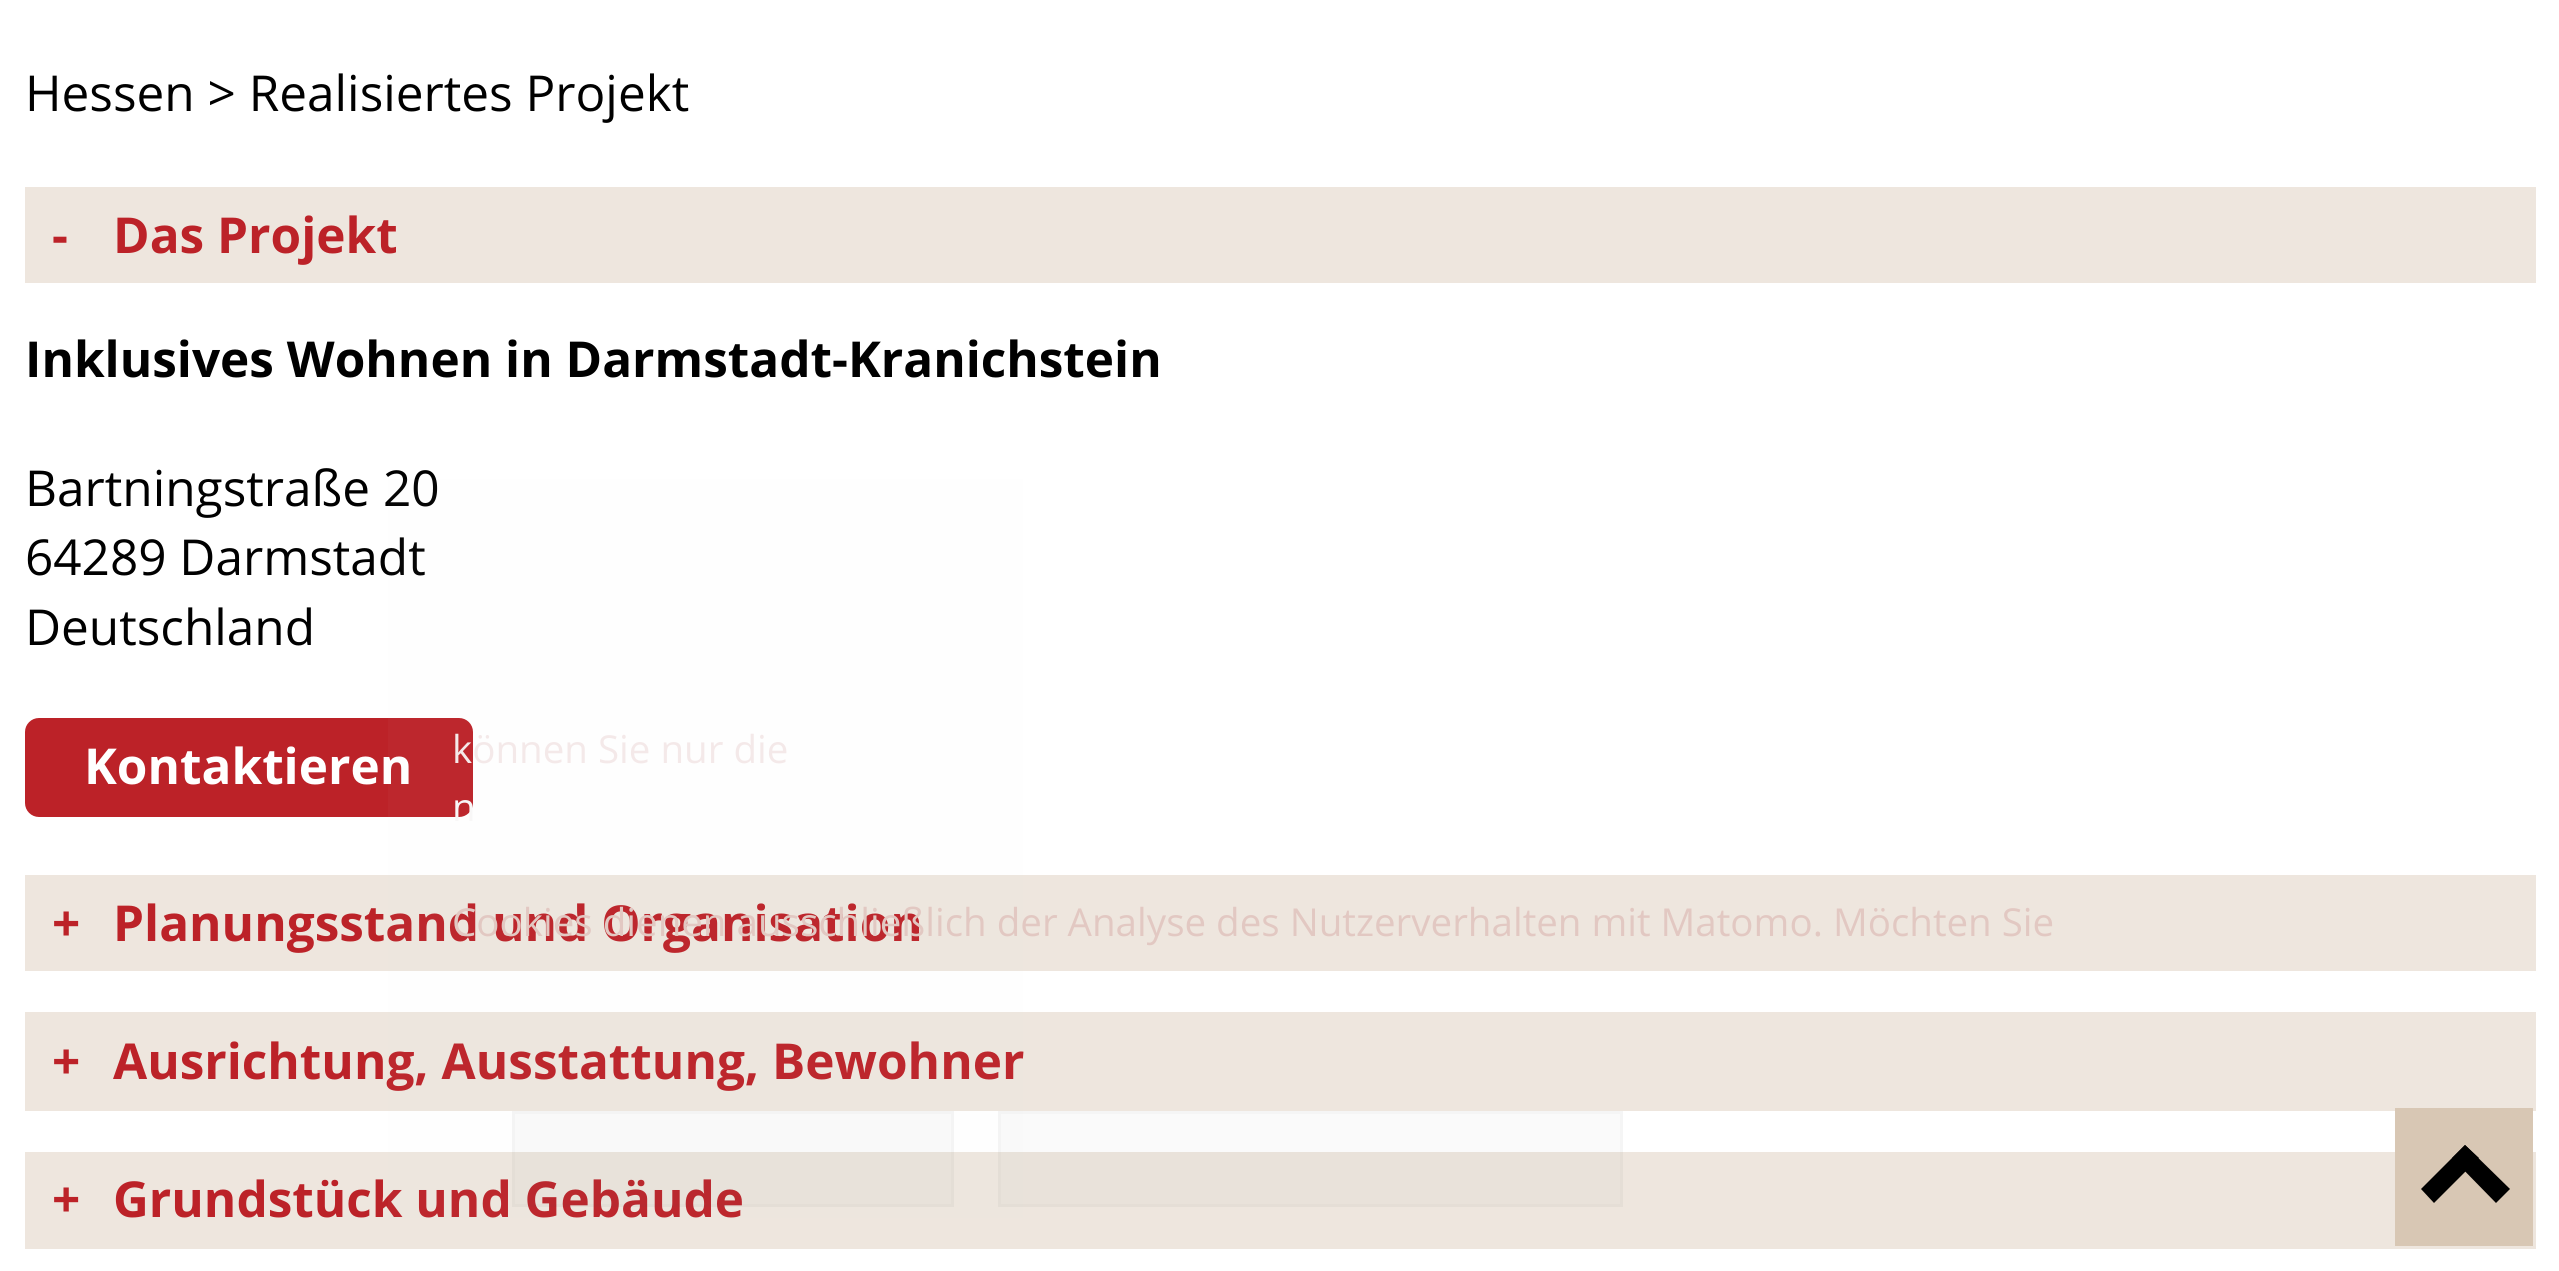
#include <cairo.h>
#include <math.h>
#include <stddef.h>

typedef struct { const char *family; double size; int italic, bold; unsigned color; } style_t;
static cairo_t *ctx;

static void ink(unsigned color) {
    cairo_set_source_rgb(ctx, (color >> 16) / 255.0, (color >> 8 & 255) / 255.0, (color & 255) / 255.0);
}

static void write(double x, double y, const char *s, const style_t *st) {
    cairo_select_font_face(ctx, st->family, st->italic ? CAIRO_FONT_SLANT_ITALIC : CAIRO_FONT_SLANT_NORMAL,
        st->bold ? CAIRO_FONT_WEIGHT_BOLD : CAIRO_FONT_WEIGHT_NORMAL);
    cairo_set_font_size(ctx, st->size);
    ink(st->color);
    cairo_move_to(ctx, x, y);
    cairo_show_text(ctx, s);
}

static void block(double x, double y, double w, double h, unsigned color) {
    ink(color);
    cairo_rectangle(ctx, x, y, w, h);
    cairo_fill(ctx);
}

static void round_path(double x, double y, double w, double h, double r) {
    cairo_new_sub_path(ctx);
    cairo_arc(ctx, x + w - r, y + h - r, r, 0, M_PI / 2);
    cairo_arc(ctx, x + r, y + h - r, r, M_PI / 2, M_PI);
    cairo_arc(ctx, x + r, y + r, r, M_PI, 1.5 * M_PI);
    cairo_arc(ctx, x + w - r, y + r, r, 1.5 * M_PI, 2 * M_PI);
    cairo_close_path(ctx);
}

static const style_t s1 = {"Open Sans", 49.5, 0, 0, 0x000000};
static const style_t s2 = {"Open Sans", 49.5, 0, 1, 0xbc2228};
static const style_t s3 = {"Open Sans", 49.5, 0, 1, 0x000000};
static const style_t s4 = {"Open Sans", 49.5, 0, 1, 0xffffff};
static const style_t s5 = {"Open Sans", 38.5, 0, 0, 0xf4e9e9};
static const style_t s6 = {"Open Sans", 38.5, 0, 0, 0xf8f7f7};
static const style_t s7 = {"Open Sans", 38.5, 0, 0, 0xe2c8c2};

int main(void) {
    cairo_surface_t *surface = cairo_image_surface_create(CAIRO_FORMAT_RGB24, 2559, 1271);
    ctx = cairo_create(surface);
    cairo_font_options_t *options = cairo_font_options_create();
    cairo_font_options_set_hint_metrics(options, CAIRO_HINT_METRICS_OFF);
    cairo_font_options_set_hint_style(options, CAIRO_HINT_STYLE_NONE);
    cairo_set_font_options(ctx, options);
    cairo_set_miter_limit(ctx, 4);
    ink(0xffffff);
    cairo_paint(ctx);
    write(25, 111, "Hessen > Realisiertes Projekt", &s1);
    block(25, 187, 2511, 96, 0xeee6de);
    write(52, 253, "-", &s2);
    write(113, 253, "Das Projekt", &s2);
    write(25, 377, "Inklusives Wohnen in Darmstadt-Kranichstein", &s3);
    write(25, 506, "Bartningstraße 20", &s1);
    write(25, 575, "64289 Darmstadt", &s1);
    write(25, 645, "Deutschland", &s1);
    ink(0xbc2228);
    round_path(25, 718, 448, 99, 14);
    cairo_fill(ctx);
    write(84, 784, "Kontaktieren", &s4);
    block(25, 875, 2511, 96, 0xeee6de);
    write(52, 941, "+", &s2);
    write(113, 941, "Planungsstand und Organisation", &s2);
    block(25, 1012, 2511, 99, 0xeee6de);
    write(52, 1079, "+", &s2);
    write(113, 1079, "Ausrichtung, Ausstattung, Bewohner", &s2);
    block(25, 1152, 2511, 97, 0xeee6de);
    write(52, 1217, "+", &s2);
    write(113, 1217, "Grundstück und Gebäude", &s2);
    cairo_set_source_rgba(ctx, 0.878, 0.878, 0.878, 0.03);
    cairo_rectangle(ctx, 388, 479, 635, 739);
    cairo_fill(ctx);
    write(452, 763, "können Sie nur die", &s5);
    write(452, 821, "n", &s6);
    write(452, 936, "Cookies dienen ausschließlich der Analyse des Nutzerverhalten mit Matomo. Möchten Sie", &s7);
    cairo_set_source_rgba(ctx, 0.369, 0.369, 0.369, 0.03);
    cairo_rectangle(ctx, 512, 1111, 442, 96);
    cairo_fill(ctx);
    cairo_rectangle(ctx, 513.5, 1112.5, 439, 93);
    cairo_set_line_width(ctx, 3);
    cairo_stroke(ctx);
    cairo_rectangle(ctx, 998, 1111, 625, 96);
    cairo_fill(ctx);
    cairo_rectangle(ctx, 999.5, 1112.5, 622, 93);
    cairo_stroke(ctx);
    block(2395, 1108, 138, 138, 0xd8c7b4);
    ink(0x000000);
    cairo_new_path(ctx);
    cairo_move_to(ctx, 2465, 1145);
    cairo_line_to(ctx, 2510, 1189);
    cairo_line_to(ctx, 2496, 1203);
    cairo_line_to(ctx, 2452, 1158);
    cairo_close_path(ctx);
    cairo_fill(ctx);
    cairo_new_path(ctx);
    cairo_move_to(ctx, 2465, 1145);
    cairo_line_to(ctx, 2479, 1158);
    cairo_line_to(ctx, 2434, 1203);
    cairo_line_to(ctx, 2421, 1189);
    cairo_close_path(ctx);
    cairo_fill(ctx);
    cairo_surface_write_to_png(surface, "screenshot.png");
    cairo_font_options_destroy(options);
    cairo_destroy(ctx);
    cairo_surface_destroy(surface);
    return 0;
}
